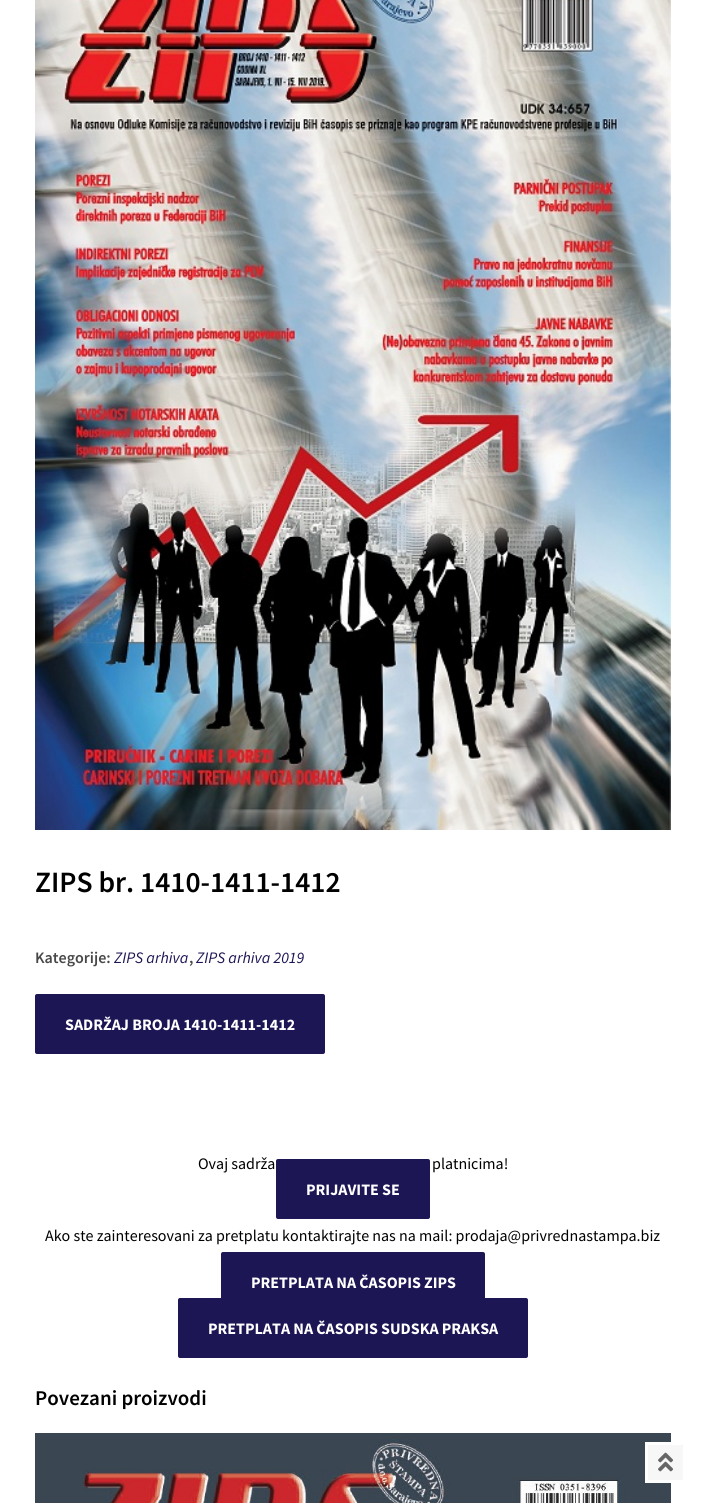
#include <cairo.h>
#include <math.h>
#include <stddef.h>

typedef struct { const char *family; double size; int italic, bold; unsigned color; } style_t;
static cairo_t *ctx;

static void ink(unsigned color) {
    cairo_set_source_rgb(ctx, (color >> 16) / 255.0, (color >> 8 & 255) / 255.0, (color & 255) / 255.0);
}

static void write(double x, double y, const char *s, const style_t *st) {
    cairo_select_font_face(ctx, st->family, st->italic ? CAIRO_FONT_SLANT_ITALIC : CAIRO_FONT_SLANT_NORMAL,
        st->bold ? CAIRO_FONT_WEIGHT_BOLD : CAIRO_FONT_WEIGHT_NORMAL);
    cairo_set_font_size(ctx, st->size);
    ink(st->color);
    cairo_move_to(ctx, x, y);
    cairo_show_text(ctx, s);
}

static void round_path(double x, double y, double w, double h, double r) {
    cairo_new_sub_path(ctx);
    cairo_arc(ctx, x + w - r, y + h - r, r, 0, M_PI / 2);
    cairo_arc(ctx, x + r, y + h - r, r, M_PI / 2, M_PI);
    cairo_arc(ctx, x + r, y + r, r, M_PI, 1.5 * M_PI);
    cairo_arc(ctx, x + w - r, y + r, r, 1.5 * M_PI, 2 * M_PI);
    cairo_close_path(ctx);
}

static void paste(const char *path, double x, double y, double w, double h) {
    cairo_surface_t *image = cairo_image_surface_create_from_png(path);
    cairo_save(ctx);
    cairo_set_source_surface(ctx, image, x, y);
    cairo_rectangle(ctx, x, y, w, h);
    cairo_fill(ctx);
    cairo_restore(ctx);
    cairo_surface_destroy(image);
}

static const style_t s1 = {"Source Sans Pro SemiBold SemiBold", 29.5, 0, 0, 0x000000};
static const style_t s2 = {"Source Sans Pro SemiBold SemiBold", 16, 0, 0, 0x484848};
static const style_t s3 = {"Source Sans Pro", 16, 1, 0, 0x1d1655};
static const style_t s4 = {"Source Sans Pro", 16, 0, 1, 0xffffff};
static const style_t s5 = {"Source Sans Pro", 16, 0, 0, 0x000000};
static const style_t s6 = {"Source Sans Pro SemiBold SemiBold", 21, 0, 0, 0x000000};

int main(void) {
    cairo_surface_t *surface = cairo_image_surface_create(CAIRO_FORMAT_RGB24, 706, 1503);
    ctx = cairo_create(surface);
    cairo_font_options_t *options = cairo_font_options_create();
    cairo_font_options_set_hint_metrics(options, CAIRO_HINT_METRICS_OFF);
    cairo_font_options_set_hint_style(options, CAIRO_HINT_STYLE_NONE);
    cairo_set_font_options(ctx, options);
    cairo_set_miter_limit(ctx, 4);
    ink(0xffffff);
    cairo_paint(ctx);
    paste("pic1.png", 35, 0, 636, 830);
    write(35, 892, "ZIPS br. 1410-1411-1412", &s1);
    write(35, 963, "Kategorije:", &s2);
    write(114, 963, "ZIPS arhiva", &s3);
    write(189, 963, ",", &s2);
    write(196, 963, "ZIPS arhiva 2019", &s3);
    round_path(35, 994, 290, 60, 2);
    cairo_fill(ctx);
    write(65, 1030, "SADRŽAJ BROJA 1410-1411-1412", &s4);
    write(198, 1169, "Ovaj sadrža", &s5);
    write(432, 1169, "platnicima!", &s5);
    ink(0x1d1655);
    round_path(276, 1159, 154, 60, 2);
    cairo_fill(ctx);
    write(306, 1195, "PRIJAVITE SE", &s4);
    write(45, 1241, "Ako ste zainteresovani za pretplatu kontaktirajte nas na mail: prodaja@privrednastampa.biz", &s5);
    ink(0x1d1655);
    round_path(221, 1252, 264, 60, 2);
    cairo_fill(ctx);
    write(251, 1288, "PRETPLATA NA ČASOPIS ZIPS", &s4);
    ink(0x1d1655);
    round_path(178, 1298, 350, 60, 2);
    cairo_fill(ctx);
    write(208, 1334, "PRETPLATA NA ČASOPIS SUDSKA PRAKSA", &s4);
    write(35, 1405, "Povezani proizvodi", &s6);
    paste("pic2.png", 35, 1433, 636, 70);
    ink(0xf7f7f7);
    cairo_rectangle(ctx, 646.5, 1443.5, 38, 38);
    cairo_fill_preserve(ctx);
    ink(0xffffff);
    cairo_set_line_width(ctx, 3);
    cairo_stroke(ctx);
    paste("pic3.png", 658, 1452, 15, 20);
    cairo_surface_write_to_png(surface, "screenshot.png");
    cairo_font_options_destroy(options);
    cairo_destroy(ctx);
    cairo_surface_destroy(surface);
    return 0;
}
